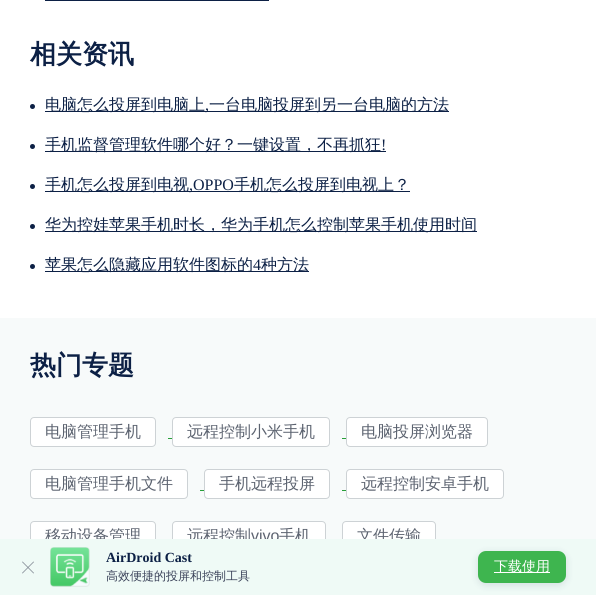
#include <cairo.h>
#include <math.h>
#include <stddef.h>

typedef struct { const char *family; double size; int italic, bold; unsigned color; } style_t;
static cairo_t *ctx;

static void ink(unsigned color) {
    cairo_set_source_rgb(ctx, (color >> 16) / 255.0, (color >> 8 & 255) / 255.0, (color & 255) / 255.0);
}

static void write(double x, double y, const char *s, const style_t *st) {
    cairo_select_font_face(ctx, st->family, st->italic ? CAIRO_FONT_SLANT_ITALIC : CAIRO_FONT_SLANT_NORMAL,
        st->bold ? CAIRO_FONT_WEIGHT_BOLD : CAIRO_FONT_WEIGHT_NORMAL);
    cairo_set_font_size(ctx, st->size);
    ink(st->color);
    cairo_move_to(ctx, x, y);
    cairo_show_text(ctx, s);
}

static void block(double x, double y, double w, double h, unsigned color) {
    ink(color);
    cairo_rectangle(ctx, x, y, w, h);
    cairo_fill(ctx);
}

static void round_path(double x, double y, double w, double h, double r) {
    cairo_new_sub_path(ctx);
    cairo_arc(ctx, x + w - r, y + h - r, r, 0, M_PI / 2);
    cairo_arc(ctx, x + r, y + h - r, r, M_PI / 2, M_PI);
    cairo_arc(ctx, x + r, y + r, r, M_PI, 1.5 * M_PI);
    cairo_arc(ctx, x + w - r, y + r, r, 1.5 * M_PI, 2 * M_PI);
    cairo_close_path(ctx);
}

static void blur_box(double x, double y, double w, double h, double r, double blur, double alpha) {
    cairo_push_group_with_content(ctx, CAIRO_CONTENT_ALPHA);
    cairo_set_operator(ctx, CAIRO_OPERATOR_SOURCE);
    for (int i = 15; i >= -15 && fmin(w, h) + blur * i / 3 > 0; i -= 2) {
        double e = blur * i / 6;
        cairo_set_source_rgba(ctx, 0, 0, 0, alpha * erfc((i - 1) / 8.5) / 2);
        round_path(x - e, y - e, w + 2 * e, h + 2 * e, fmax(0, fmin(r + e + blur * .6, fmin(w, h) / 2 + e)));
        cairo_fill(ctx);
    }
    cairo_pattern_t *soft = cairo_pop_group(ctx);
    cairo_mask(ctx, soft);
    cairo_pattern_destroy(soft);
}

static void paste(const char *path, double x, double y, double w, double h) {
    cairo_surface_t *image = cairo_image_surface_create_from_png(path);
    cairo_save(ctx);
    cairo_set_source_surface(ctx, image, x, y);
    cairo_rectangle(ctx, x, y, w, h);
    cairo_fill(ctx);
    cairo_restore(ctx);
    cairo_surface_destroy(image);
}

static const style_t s1 = {"WenQuanYi Zen Hei", 26, 0, 1, 0x0c2045};
static const style_t s2 = {"WenQuanYi Zen Hei Medium", 16, 0, 0, 0x0c2045};
static const style_t s3 = {"Liberation Serif", 16, 0, 0, 0x0c2045};
static const style_t s4 = {"WenQuanYi Zen Hei Medium", 16, 0, 0, 0x5c6370};
static const style_t s5 = {"Liberation Sans", 16, 0, 0, 0x5c6370};
static const style_t s6 = {"Liberation Serif", 14, 0, 1, 0x0c2045};
static const style_t s7 = {"WenQuanYi Zen Hei Medium", 12, 0, 0, 0x3a4259};
static const style_t s8 = {"WenQuanYi Zen Hei Medium", 14, 0, 0, 0xffffff};

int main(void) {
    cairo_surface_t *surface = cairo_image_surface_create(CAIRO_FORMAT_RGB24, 596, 595);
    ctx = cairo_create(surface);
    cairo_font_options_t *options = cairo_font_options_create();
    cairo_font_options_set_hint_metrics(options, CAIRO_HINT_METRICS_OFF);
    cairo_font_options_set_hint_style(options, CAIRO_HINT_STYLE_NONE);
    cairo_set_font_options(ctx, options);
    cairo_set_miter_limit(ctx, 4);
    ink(0xffffff);
    cairo_paint(ctx);
    block(45, 0, 224, 1, 0x0c2045);
    write(30, 63, "相关资讯", &s1);
    cairo_new_path(ctx);
    cairo_arc(ctx, 32.5, 106.5, 2.5, 0, 2 * M_PI);
    cairo_fill(ctx);
    block(45, 111, 404, 1, 0x0c2045);
    write(45, 110, "电脑怎么投屏到电脑上", &s2);
    write(209, 110, "一台电脑投屏到另一台电脑的方法", &s2);
    write(205, 110, ",", &s3);
    cairo_new_path(ctx);
    cairo_arc(ctx, 32.5, 146.5, 2.5, 0, 2 * M_PI);
    cairo_fill(ctx);
    block(45, 151, 341, 1, 0x0c2045);
    write(45, 150, "手机监督管理软件哪个好？一键设置，不再抓狂", &s2);
    write(381, 150, "!", &s3);
    cairo_new_path(ctx);
    cairo_arc(ctx, 32.5, 186.5, 2.5, 0, 2 * M_PI);
    cairo_fill(ctx);
    block(45, 191, 365, 1, 0x0c2045);
    write(45, 190, "手机怎么投屏到电视", &s2);
    write(189, 190, ",OPPO", &s3);
    write(234, 190, "手机怎么投屏到电视上？", &s2);
    cairo_new_path(ctx);
    cairo_arc(ctx, 32.5, 226.5, 2.5, 0, 2 * M_PI);
    cairo_fill(ctx);
    block(45, 231, 432, 1, 0x0c2045);
    write(45, 230, "华为控娃苹果手机时长，华为手机怎么控制苹果手机使用时间", &s2);
    cairo_new_path(ctx);
    cairo_arc(ctx, 32.5, 266.5, 2.5, 0, 2 * M_PI);
    cairo_fill(ctx);
    block(45, 271, 264, 1, 0x0c2045);
    write(45, 270, "苹果怎么隐藏应用软件图标的", &s2);
    write(253, 270, "4", &s3);
    write(261, 270, "种方法", &s2);
    block(0, 318, 596, 221, 0xf7fafa);
    write(30, 374, "热门专题", &s1);
    ink(0xffffff);
    round_path(30.5, 417.5, 125, 29, 3.5);
    cairo_fill_preserve(ctx);
    ink(0xcdd2d5);
    cairo_set_line_width(ctx, 1);
    cairo_stroke(ctx);
    write(45, 437, "电脑管理手机", &s4);
    block(168, 438, 4, 1, 0x279f38);
    ink(0xffffff);
    round_path(172.5, 417.5, 157, 29, 3.5);
    cairo_fill_preserve(ctx);
    ink(0xcdd2d5);
    cairo_stroke(ctx);
    write(187, 437, "远程控制小米手机", &s4);
    block(342, 438, 4, 1, 0x279f38);
    ink(0xffffff);
    round_path(346.5, 417.5, 141, 29, 3.5);
    cairo_fill_preserve(ctx);
    ink(0xcdd2d5);
    cairo_stroke(ctx);
    write(361, 437, "电脑投屏浏览器", &s4);
    ink(0xffffff);
    round_path(30.5, 469.5, 157, 29, 3.5);
    cairo_fill_preserve(ctx);
    ink(0xcdd2d5);
    cairo_stroke(ctx);
    write(45, 489, "电脑管理手机文件", &s4);
    block(200, 490, 4, 1, 0x279f38);
    ink(0xffffff);
    round_path(204.5, 469.5, 125, 29, 3.5);
    cairo_fill_preserve(ctx);
    ink(0xcdd2d5);
    cairo_stroke(ctx);
    write(219, 489, "手机远程投屏", &s4);
    block(342, 490, 4, 1, 0x279f38);
    ink(0xffffff);
    round_path(346.5, 469.5, 157, 29, 3.5);
    cairo_fill_preserve(ctx);
    ink(0xcdd2d5);
    cairo_stroke(ctx);
    write(361, 489, "远程控制安卓手机", &s4);
    ink(0xffffff);
    round_path(30.5, 521.5, 125, 29, 3.5);
    cairo_fill_preserve(ctx);
    ink(0xcdd2d5);
    cairo_stroke(ctx);
    write(45, 541, "移动设备管理", &s4);
    ink(0xffffff);
    round_path(172.5, 521.5, 153, 29, 3.5);
    cairo_fill_preserve(ctx);
    ink(0xcdd2d5);
    cairo_stroke(ctx);
    write(187, 541, "远程控制", &s4);
    write(251, 541, "vivo", &s5);
    write(279, 541, "手机", &s4);
    ink(0xffffff);
    round_path(342.5, 521.5, 93, 29, 3.5);
    cairo_fill_preserve(ctx);
    ink(0xcdd2d5);
    cairo_stroke(ctx);
    write(357, 541, "文件传输", &s4);
    block(0, 539, 596, 56, 0xeffaf6);
    ink(0x7a818d);
    cairo_new_path(ctx);
    cairo_move_to(ctx, 22.5, 561.5);
    cairo_line_to(ctx, 34, 573);
    cairo_line_to(ctx, 33.5, 573.5);
    cairo_line_to(ctx, 22, 562);
    cairo_close_path(ctx);
    cairo_fill(ctx);
    cairo_new_path(ctx);
    cairo_move_to(ctx, 22, 573);
    cairo_line_to(ctx, 33.5, 561.5);
    cairo_line_to(ctx, 34, 562);
    cairo_line_to(ctx, 22.5, 573.5);
    cairo_close_path(ctx);
    cairo_fill(ctx);
    paste("pic1.png", 50, 547, 40, 40);
    write(106, 562, "AirDroid Cast", &s6);
    write(106, 580, "高效便捷的投屏和控制工具", &s7);
    ink(0x0c2045);
    blur_box(478, 553, 88, 32, 8, 4, 0.13);
    ink(0x3eb54f);
    round_path(478, 551, 88, 32, 8);
    cairo_fill(ctx);
    block(494, 572, 56, 1, 0xffffff);
    write(494, 571, "下载使用", &s8);
    cairo_surface_write_to_png(surface, "screenshot.png");
    cairo_font_options_destroy(options);
    cairo_destroy(ctx);
    cairo_surface_destroy(surface);
    return 0;
}
